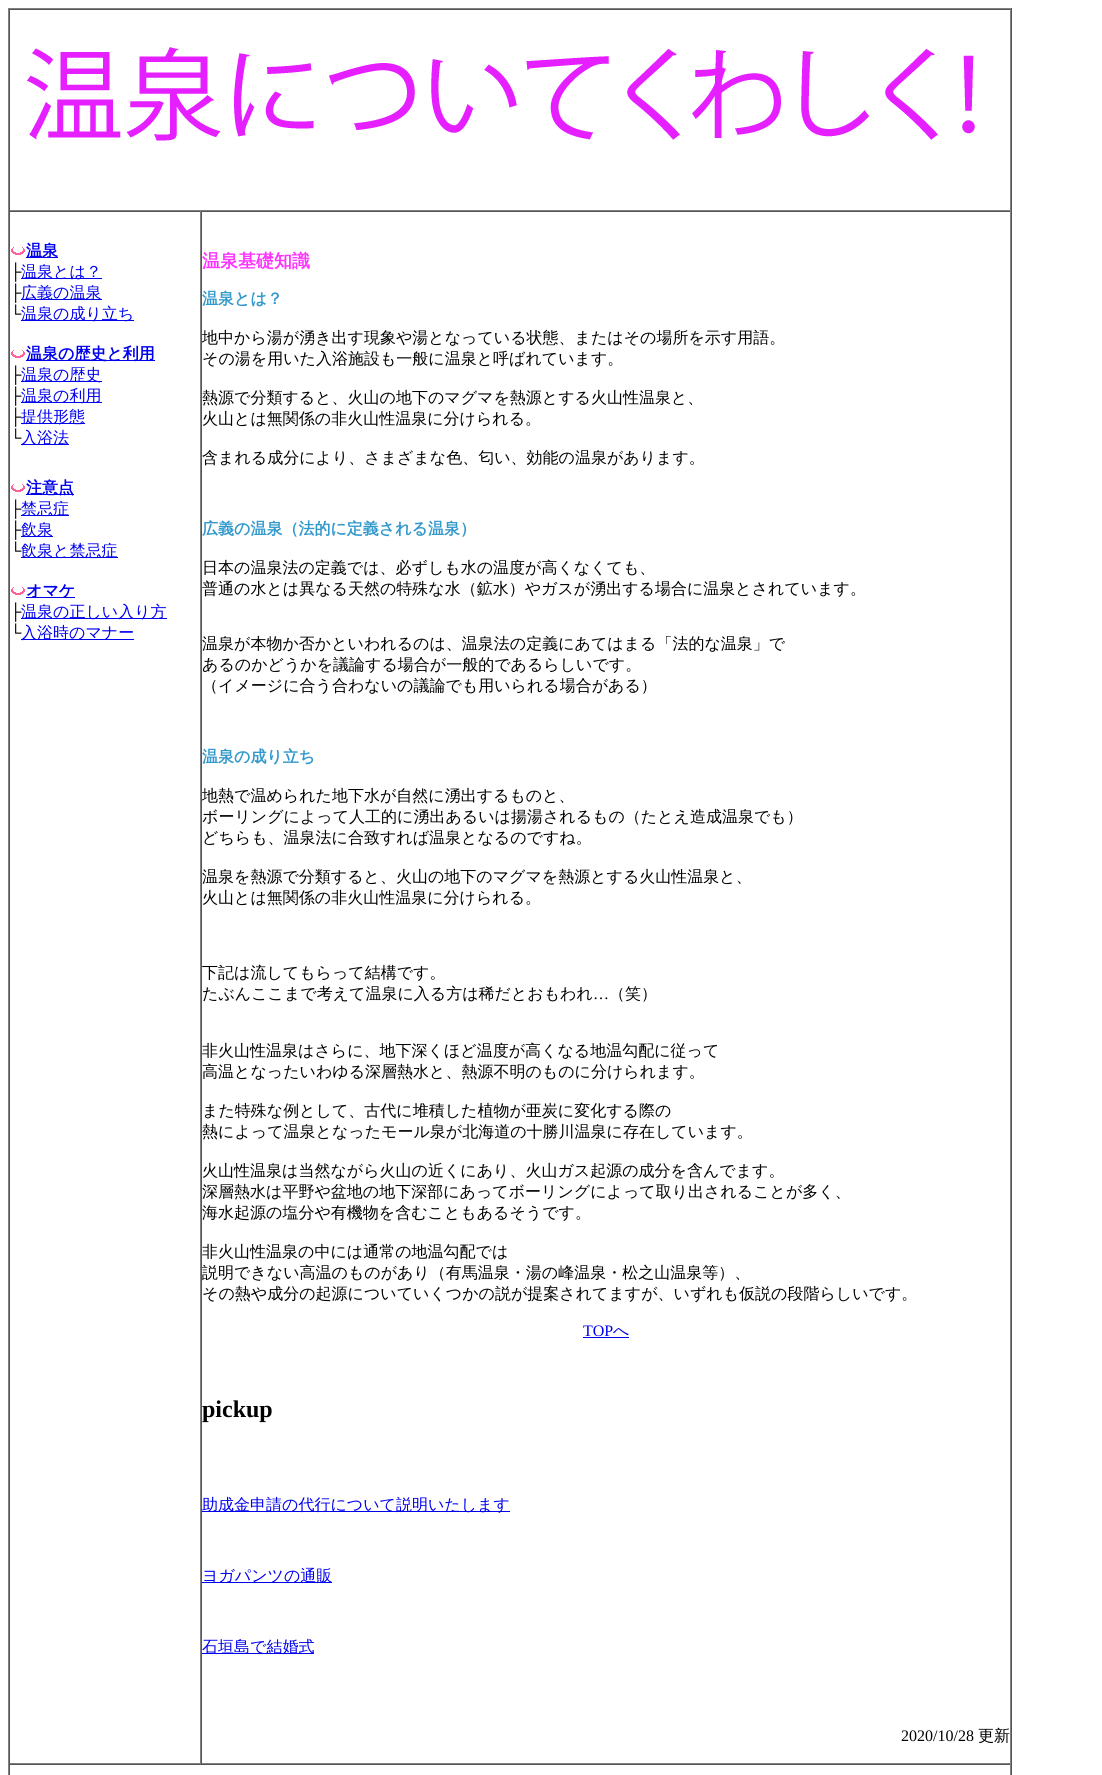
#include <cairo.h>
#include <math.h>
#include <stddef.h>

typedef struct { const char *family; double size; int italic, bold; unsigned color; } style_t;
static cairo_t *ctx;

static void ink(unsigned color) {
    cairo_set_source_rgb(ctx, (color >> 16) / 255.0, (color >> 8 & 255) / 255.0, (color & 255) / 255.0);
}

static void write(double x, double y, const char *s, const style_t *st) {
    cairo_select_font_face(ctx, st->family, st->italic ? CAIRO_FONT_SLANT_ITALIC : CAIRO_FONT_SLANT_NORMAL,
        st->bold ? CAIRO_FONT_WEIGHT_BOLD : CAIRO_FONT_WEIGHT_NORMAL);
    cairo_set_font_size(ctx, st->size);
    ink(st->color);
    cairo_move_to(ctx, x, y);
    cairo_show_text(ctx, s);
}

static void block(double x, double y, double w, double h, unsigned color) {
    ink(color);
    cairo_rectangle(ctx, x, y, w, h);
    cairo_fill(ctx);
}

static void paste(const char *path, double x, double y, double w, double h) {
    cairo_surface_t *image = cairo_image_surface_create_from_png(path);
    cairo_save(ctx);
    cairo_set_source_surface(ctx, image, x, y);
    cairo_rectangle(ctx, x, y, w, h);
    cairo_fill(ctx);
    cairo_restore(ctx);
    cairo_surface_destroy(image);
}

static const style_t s1 = {"WenQuanYi Zen Hei", 16, 0, 1, 0x0000ee};
static const style_t s2 = {"Liberation Serif", 16, 0, 1, 0x000000};
static const style_t s3 = {"WenQuanYi Zen Hei Medium", 16, 0, 0, 0x0000ee};
static const style_t s4 = {"WenQuanYi Zen Hei", 18, 0, 1, 0xff33ff};
static const style_t s5 = {"WenQuanYi Zen Hei", 16, 0, 1, 0x3399cc};
static const style_t s6 = {"WenQuanYi Zen Hei Medium", 16, 0, 0, 0x000000};
static const style_t s7 = {"Liberation Serif", 16, 0, 0, 0x000000};
static const style_t s8 = {"Liberation Serif", 16, 0, 0, 0x0000ee};
static const style_t s9 = {"Liberation Serif", 24, 0, 1, 0x000000};

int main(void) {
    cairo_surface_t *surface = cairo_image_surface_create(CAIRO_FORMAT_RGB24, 1102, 1775);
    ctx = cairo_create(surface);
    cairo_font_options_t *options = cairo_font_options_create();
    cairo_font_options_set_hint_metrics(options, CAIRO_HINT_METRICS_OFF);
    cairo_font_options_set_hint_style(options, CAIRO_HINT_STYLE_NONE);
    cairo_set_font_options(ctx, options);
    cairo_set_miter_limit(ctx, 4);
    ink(0xffffff);
    cairo_paint(ctx);
    block(8, 8, 1004, 1, 0x808080);
    block(1011, 8, 1, 1767, 0x555555);
    block(8, 8, 1, 1767, 0x808080);
    block(9, 9, 1002, 1, 0x555555);
    block(1010, 9, 1, 202, 0x808080);
    block(9, 210, 1002, 1, 0x808080);
    block(9, 9, 1, 202, 0x555555);
    paste("pic1.png", 27, 47, 948, 94);
    block(9, 211, 1002, 1, 0x555555);
    block(200, 211, 1, 1553, 0x808080);
    block(9, 1763, 192, 1, 0x808080);
    block(9, 211, 1, 1553, 0x555555);
    paste("pic2.png", 11, 247, 14, 8);
    block(26, 257, 32, 1, 0x0000ee);
    write(26, 256, "温泉", &s1);
    write(10, 277, "├", &s2);
    block(21, 278, 81, 1, 0x0000ee);
    write(21, 277, "温泉とは？", &s3);
    write(10, 298, "├", &s2);
    block(21, 299, 81, 1, 0x0000ee);
    write(21, 298, "広義の温泉", &s3);
    write(10, 319, "└", &s2);
    block(21, 320, 113, 1, 0x0000ee);
    write(21, 319, "温泉の成り立ち", &s3);
    paste("pic2.png", 11, 350, 14, 8);
    block(26, 360, 129, 1, 0x0000ee);
    write(26, 359, "温泉の歴史と利用", &s1);
    write(10, 380, "├", &s2);
    block(21, 381, 81, 1, 0x0000ee);
    write(21, 380, "温泉の歴史", &s3);
    write(10, 401, "├", &s2);
    block(21, 402, 81, 1, 0x0000ee);
    write(21, 401, "温泉の利用", &s3);
    write(10, 422, "├", &s2);
    block(21, 423, 64, 1, 0x0000ee);
    write(21, 422, "提供形態", &s3);
    write(10, 443, "└", &s2);
    block(21, 444, 48, 1, 0x0000ee);
    write(21, 443, "入浴法", &s3);
    paste("pic2.png", 11, 484, 14, 8);
    block(26, 494, 48, 1, 0x0000ee);
    write(26, 493, "注意点", &s1);
    write(10, 514, "├", &s2);
    block(21, 515, 48, 1, 0x0000ee);
    write(21, 514, "禁忌症", &s3);
    write(10, 535, "├", &s2);
    block(21, 536, 32, 1, 0x0000ee);
    write(21, 535, "飲泉", &s3);
    write(10, 556, "└", &s2);
    block(21, 557, 97, 1, 0x0000ee);
    write(21, 556, "飲泉と禁忌症", &s3);
    paste("pic2.png", 11, 587, 14, 8);
    block(26, 597, 49, 1, 0x0000ee);
    write(26, 596, "オマケ", &s1);
    write(10, 617, "├", &s2);
    block(21, 618, 146, 1, 0x0000ee);
    write(21, 617, "温泉の正しい入り方", &s3);
    write(10, 638, "└", &s2);
    block(21, 639, 113, 1, 0x0000ee);
    write(21, 638, "入浴時のマナー", &s3);
    block(1010, 211, 1, 1553, 0x808080);
    block(201, 1763, 810, 1, 0x808080);
    block(201, 211, 1, 1553, 0x555555);
    write(202, 267, "温泉基礎知識", &s4);
    write(202, 304, "温泉とは？", &s5);
    write(202, 343, "地中から湯が湧き出す現象や湯となっている状態、またはその場所を示す用語。", &s6);
    write(202, 364, "その湯を用いた入浴施設も一般に温泉と呼ばれています。", &s6);
    write(202, 403, "熱源で分類すると、火山の地下のマグマを熱源とする火山性温泉と、", &s6);
    write(202, 424, "火山とは無関係の非火山性温泉に分けられる。", &s6);
    write(202, 463, "含まれる成分により、さまざまな色、匂い、効能の温泉があります。", &s6);
    write(202, 534, "広義の温泉（法的に定義される温泉）", &s5);
    write(202, 573, "日本の温泉法の定義では、必ずしも水の温度が高くなくても、", &s6);
    write(202, 594, "普通の水とは異なる天然の特殊な水（鉱水）やガスが湧出する場合に温泉とされています。", &s6);
    write(202, 649, "温泉が本物か否かといわれるのは、温泉法の定義にあてはまる「法的な温泉」で", &s6);
    write(202, 670, "あるのかどうかを議論する場合が一般的であるらしいです。", &s6);
    write(202, 691, "（イメージに合う合わないの議論でも用いられる場合がある）", &s6);
    write(202, 762, "温泉の成り立ち", &s5);
    write(202, 801, "地熱で温められた地下水が自然に湧出するものと、", &s6);
    write(202, 822, "ボーリングによって人工的に湧出あるいは揚湯されるもの（たとえ造成温泉でも）", &s6);
    write(202, 843, "どちらも、温泉法に合致すれば温泉となるのですね。", &s6);
    write(202, 882, "温泉を熱源で分類すると、火山の地下のマグマを熱源とする火山性温泉と、", &s6);
    write(202, 903, "火山とは無関係の非火山性温泉に分けられる。", &s6);
    write(202, 978, "下記は流してもらって結構です。", &s6);
    write(202, 999, "たぶんここまで考えて温泉に入る方は稀だとおもわれ", &s6);
    write(593, 999, "…", &s7);
    write(609, 999, "（笑）", &s6);
    write(202, 1056, "非火山性温泉はさらに、地下深くほど温度が高くなる地温勾配に従って", &s6);
    write(202, 1077, "高温となったいわゆる深層熱水と、熱源不明のものに分けられます。", &s6);
    write(202, 1116, "また特殊な例として、古代に堆積した植物が亜炭に変化する際の", &s6);
    write(202, 1137, "熱によって温泉となったモール泉が北海道の十勝川温泉に存在しています。", &s6);
    write(202, 1176, "火山性温泉は当然ながら火山の近くにあり、火山ガス起源の成分を含んでます。", &s6);
    write(202, 1197, "深層熱水は平野や盆地の地下深部にあってボーリングによって取り出されることが多く、", &s6);
    write(202, 1218, "海水起源の塩分や有機物を含むこともあるそうです。", &s6);
    write(202, 1257, "非火山性温泉の中には通常の地温勾配では", &s6);
    write(202, 1278, "説明できない高温のものがあり（有馬温泉・湯の峰温泉・松之山温泉等）、", &s6);
    write(202, 1299, "その熱や成分の起源についていくつかの説が提案されてますが、いずれも仮説の段階らしいです。", &s6);
    write(583, 1336, "TOP", &s8);
    write(613, 1336, "へ", &s3);
    block(583, 1337, 46, 1, 0x0000ee);
    write(202, 1417, "pickup", &s9);
    block(202, 1511, 308, 1, 0x0000ee);
    write(202, 1510, "助成金申請の代行について説明いたします", &s3);
    block(202, 1582, 130, 1, 0x0000ee);
    write(202, 1581, "ヨガパンツの通販", &s3);
    block(202, 1653, 112, 1, 0x0000ee);
    write(202, 1652, "石垣島で結婚式", &s3);
    write(901, 1741, "2020/10/28", &s7);
    write(978, 1741, "更新", &s6);
    block(9, 1764, 1002, 1, 0x555555);
    block(1010, 1764, 1, 11, 0x808080);
    block(9, 1764, 1, 11, 0x555555);
    cairo_surface_write_to_png(surface, "screenshot.png");
    cairo_font_options_destroy(options);
    cairo_destroy(ctx);
    cairo_surface_destroy(surface);
    return 0;
}
